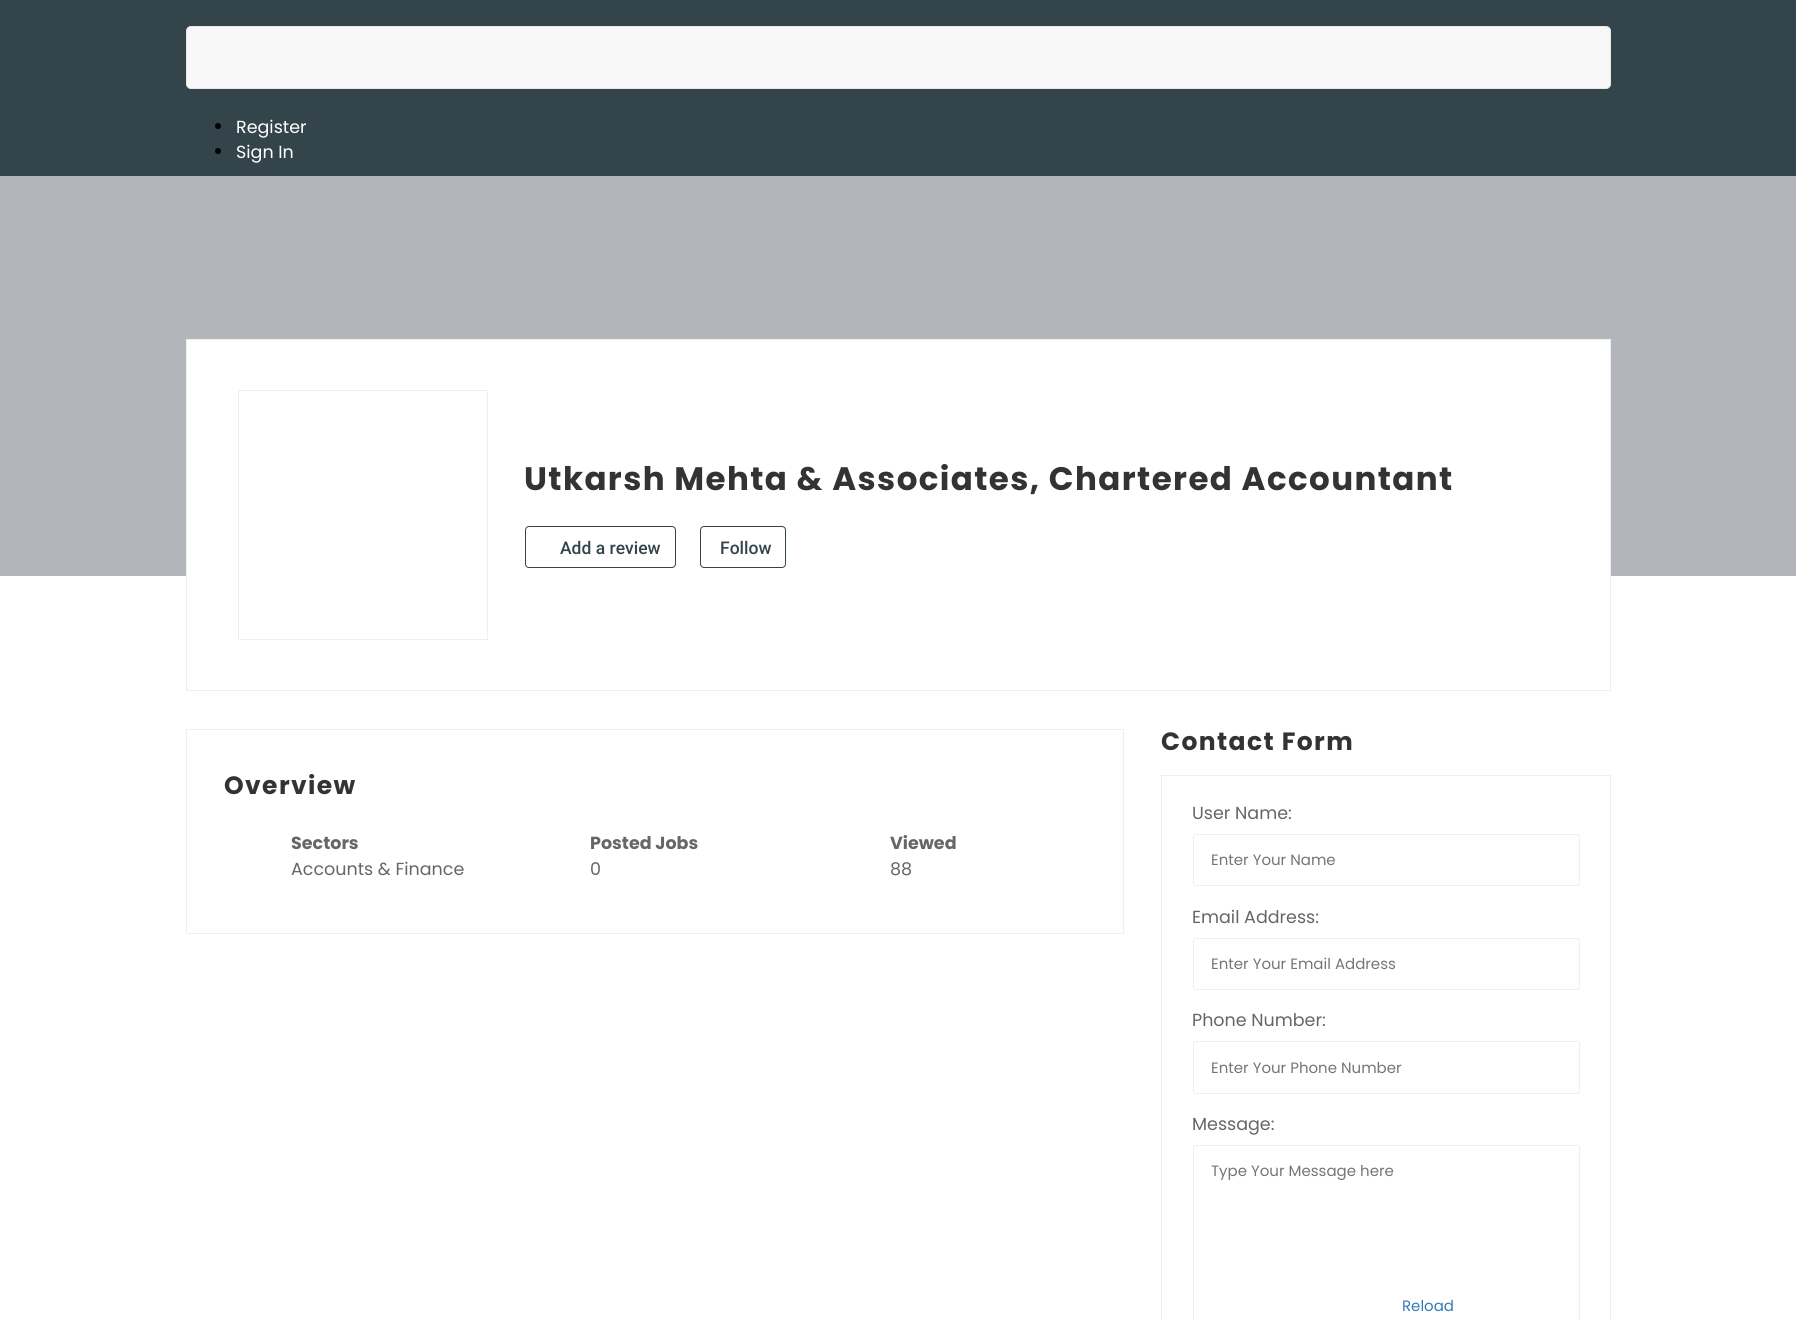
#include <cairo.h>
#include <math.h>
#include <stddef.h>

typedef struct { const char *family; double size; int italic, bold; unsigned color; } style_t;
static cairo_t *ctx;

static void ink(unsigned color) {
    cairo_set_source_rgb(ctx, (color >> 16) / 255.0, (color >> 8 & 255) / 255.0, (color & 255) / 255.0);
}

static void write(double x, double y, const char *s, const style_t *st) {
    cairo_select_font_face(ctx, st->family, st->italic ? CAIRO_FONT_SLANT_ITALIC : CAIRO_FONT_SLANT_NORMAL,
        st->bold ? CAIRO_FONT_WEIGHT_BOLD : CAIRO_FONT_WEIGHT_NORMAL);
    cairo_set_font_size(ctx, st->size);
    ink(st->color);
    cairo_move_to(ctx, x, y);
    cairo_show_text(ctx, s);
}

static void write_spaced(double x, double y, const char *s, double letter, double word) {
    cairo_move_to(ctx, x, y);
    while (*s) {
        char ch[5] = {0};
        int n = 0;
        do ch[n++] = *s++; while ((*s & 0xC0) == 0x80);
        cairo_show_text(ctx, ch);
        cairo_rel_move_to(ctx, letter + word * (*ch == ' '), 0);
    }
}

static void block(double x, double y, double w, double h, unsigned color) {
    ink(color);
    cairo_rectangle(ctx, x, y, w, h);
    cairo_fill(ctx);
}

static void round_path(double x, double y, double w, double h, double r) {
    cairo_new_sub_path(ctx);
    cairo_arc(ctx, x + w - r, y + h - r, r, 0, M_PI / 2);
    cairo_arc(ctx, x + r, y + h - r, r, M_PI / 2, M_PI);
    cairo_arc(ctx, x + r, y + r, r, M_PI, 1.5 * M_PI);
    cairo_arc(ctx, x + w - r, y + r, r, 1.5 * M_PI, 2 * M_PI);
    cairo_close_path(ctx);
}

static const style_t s1 = {"Poppins", 17.5, 0, 0, 0xffffff};
static const style_t s2 = {"Roboto Medium", 17.5, 0, 0, 0x33444b};
static const style_t s3 = {"Poppins", 17.5, 0, 1, 0x666666};
static const style_t s4 = {"Poppins", 17.5, 0, 0, 0x666666};
static const style_t s5 = {"Poppins", 15, 0, 0, 0x757575};
static const style_t s6 = {"Poppins", 15, 0, 0, 0x337ab7};

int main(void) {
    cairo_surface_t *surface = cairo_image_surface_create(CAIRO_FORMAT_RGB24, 1796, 1320);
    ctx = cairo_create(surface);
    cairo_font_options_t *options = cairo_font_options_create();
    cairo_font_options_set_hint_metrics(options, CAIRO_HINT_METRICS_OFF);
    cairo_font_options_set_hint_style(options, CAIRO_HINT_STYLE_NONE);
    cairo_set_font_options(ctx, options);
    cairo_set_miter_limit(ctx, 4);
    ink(0xffffff);
    cairo_paint(ctx);
    block(0, 0, 1796, 176, 0x33444b);
    ink(0xf8f8f8);
    round_path(186.5, 26.5, 1424, 62, 4.5);
    cairo_fill_preserve(ctx);
    ink(0xe7e7e7);
    cairo_set_line_width(ctx, 1);
    cairo_stroke(ctx);
    ink(0x000000);
    cairo_arc(ctx, 218, 126, 3, 0, 2 * M_PI);
    cairo_fill(ctx);
    write(236, 133, "Register", &s1);
    ink(0x000000);
    cairo_new_path(ctx);
    cairo_arc(ctx, 218, 151, 3, 0, 2 * M_PI);
    cairo_fill(ctx);
    write(236, 158, "Sign In", &s1);
    block(0, 176, 1796, 400, 0xb2b5b9);
    block(187, 340, 1423, 236, 0xffffff);
    cairo_rectangle(ctx, 186.5, 339.5, 1424, 351);
    ink(0xefefef);
    cairo_stroke(ctx);
    cairo_rectangle(ctx, 238.5, 390.5, 249, 249);
    cairo_stroke(ctx);
    cairo_select_font_face(ctx, "Poppins", CAIRO_FONT_SLANT_NORMAL, CAIRO_FONT_WEIGHT_BOLD);
    cairo_set_font_size(ctx, 32.5);
    ink(0x333333);
    write_spaced(524, 490, "Utkarsh Mehta & Associates, Chartered Accountant", 1.4, 0);
    round_path(525.5, 526.5, 150, 41, 3.5);
    ink(0x33444b);
    cairo_stroke(ctx);
    write(560, 554, "Add a review", &s2);
    round_path(700.5, 526.5, 85, 41, 3.5);
    cairo_stroke(ctx);
    write(720, 554, "Follow", &s2);
    cairo_rectangle(ctx, 186.5, 729.5, 937, 204);
    ink(0xefefef);
    cairo_stroke(ctx);
    cairo_select_font_face(ctx, "Poppins", CAIRO_FONT_SLANT_NORMAL, CAIRO_FONT_WEIGHT_BOLD);
    cairo_set_font_size(ctx, 25);
    ink(0x333333);
    write_spaced(224, 794, "Overview", 1.4, 0);
    write(291, 849, "Sectors", &s3);
    write(291, 875, "Accounts & Finance", &s4);
    write(590, 849, "Posted Jobs", &s3);
    write(590, 875, "0", &s4);
    write(890, 849, "Viewed", &s3);
    write(890, 875, "88", &s4);
    cairo_select_font_face(ctx, "Poppins", CAIRO_FONT_SLANT_NORMAL, CAIRO_FONT_WEIGHT_BOLD);
    cairo_set_font_size(ctx, 25);
    ink(0x333333);
    write_spaced(1161, 750, "Contact Form", 1.4, 0);
    cairo_rectangle(ctx, 1161.5, 775.5, 449, 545);
    ink(0xefefef);
    cairo_stroke(ctx);
    write(1192, 819, "User Name:", &s4);
    round_path(1193.5, 834.5, 386, 51, 2);
    ink(0xefefef);
    cairo_stroke(ctx);
    write(1211, 865, "Enter Your Name", &s5);
    write(1192, 923, "Email Address:", &s4);
    round_path(1193.5, 938.5, 386, 51, 2);
    ink(0xefefef);
    cairo_stroke(ctx);
    write(1211, 969, "Enter Your Email Address", &s5);
    write(1192, 1026, "Phone Number:", &s4);
    round_path(1193.5, 1041.5, 386, 52, 2);
    ink(0xefefef);
    cairo_stroke(ctx);
    write(1211, 1073, "Enter Your Phone Number", &s5);
    write(1192, 1130, "Message:", &s4);
    round_path(1193.5, 1145.5, 386, 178, 2);
    ink(0xefefef);
    cairo_stroke(ctx);
    write(1211, 1176, "Type Your Message here", &s5);
    write(1402, 1311, "Reload", &s6);
    cairo_surface_write_to_png(surface, "screenshot.png");
    cairo_font_options_destroy(options);
    cairo_destroy(ctx);
    cairo_surface_destroy(surface);
    return 0;
}
